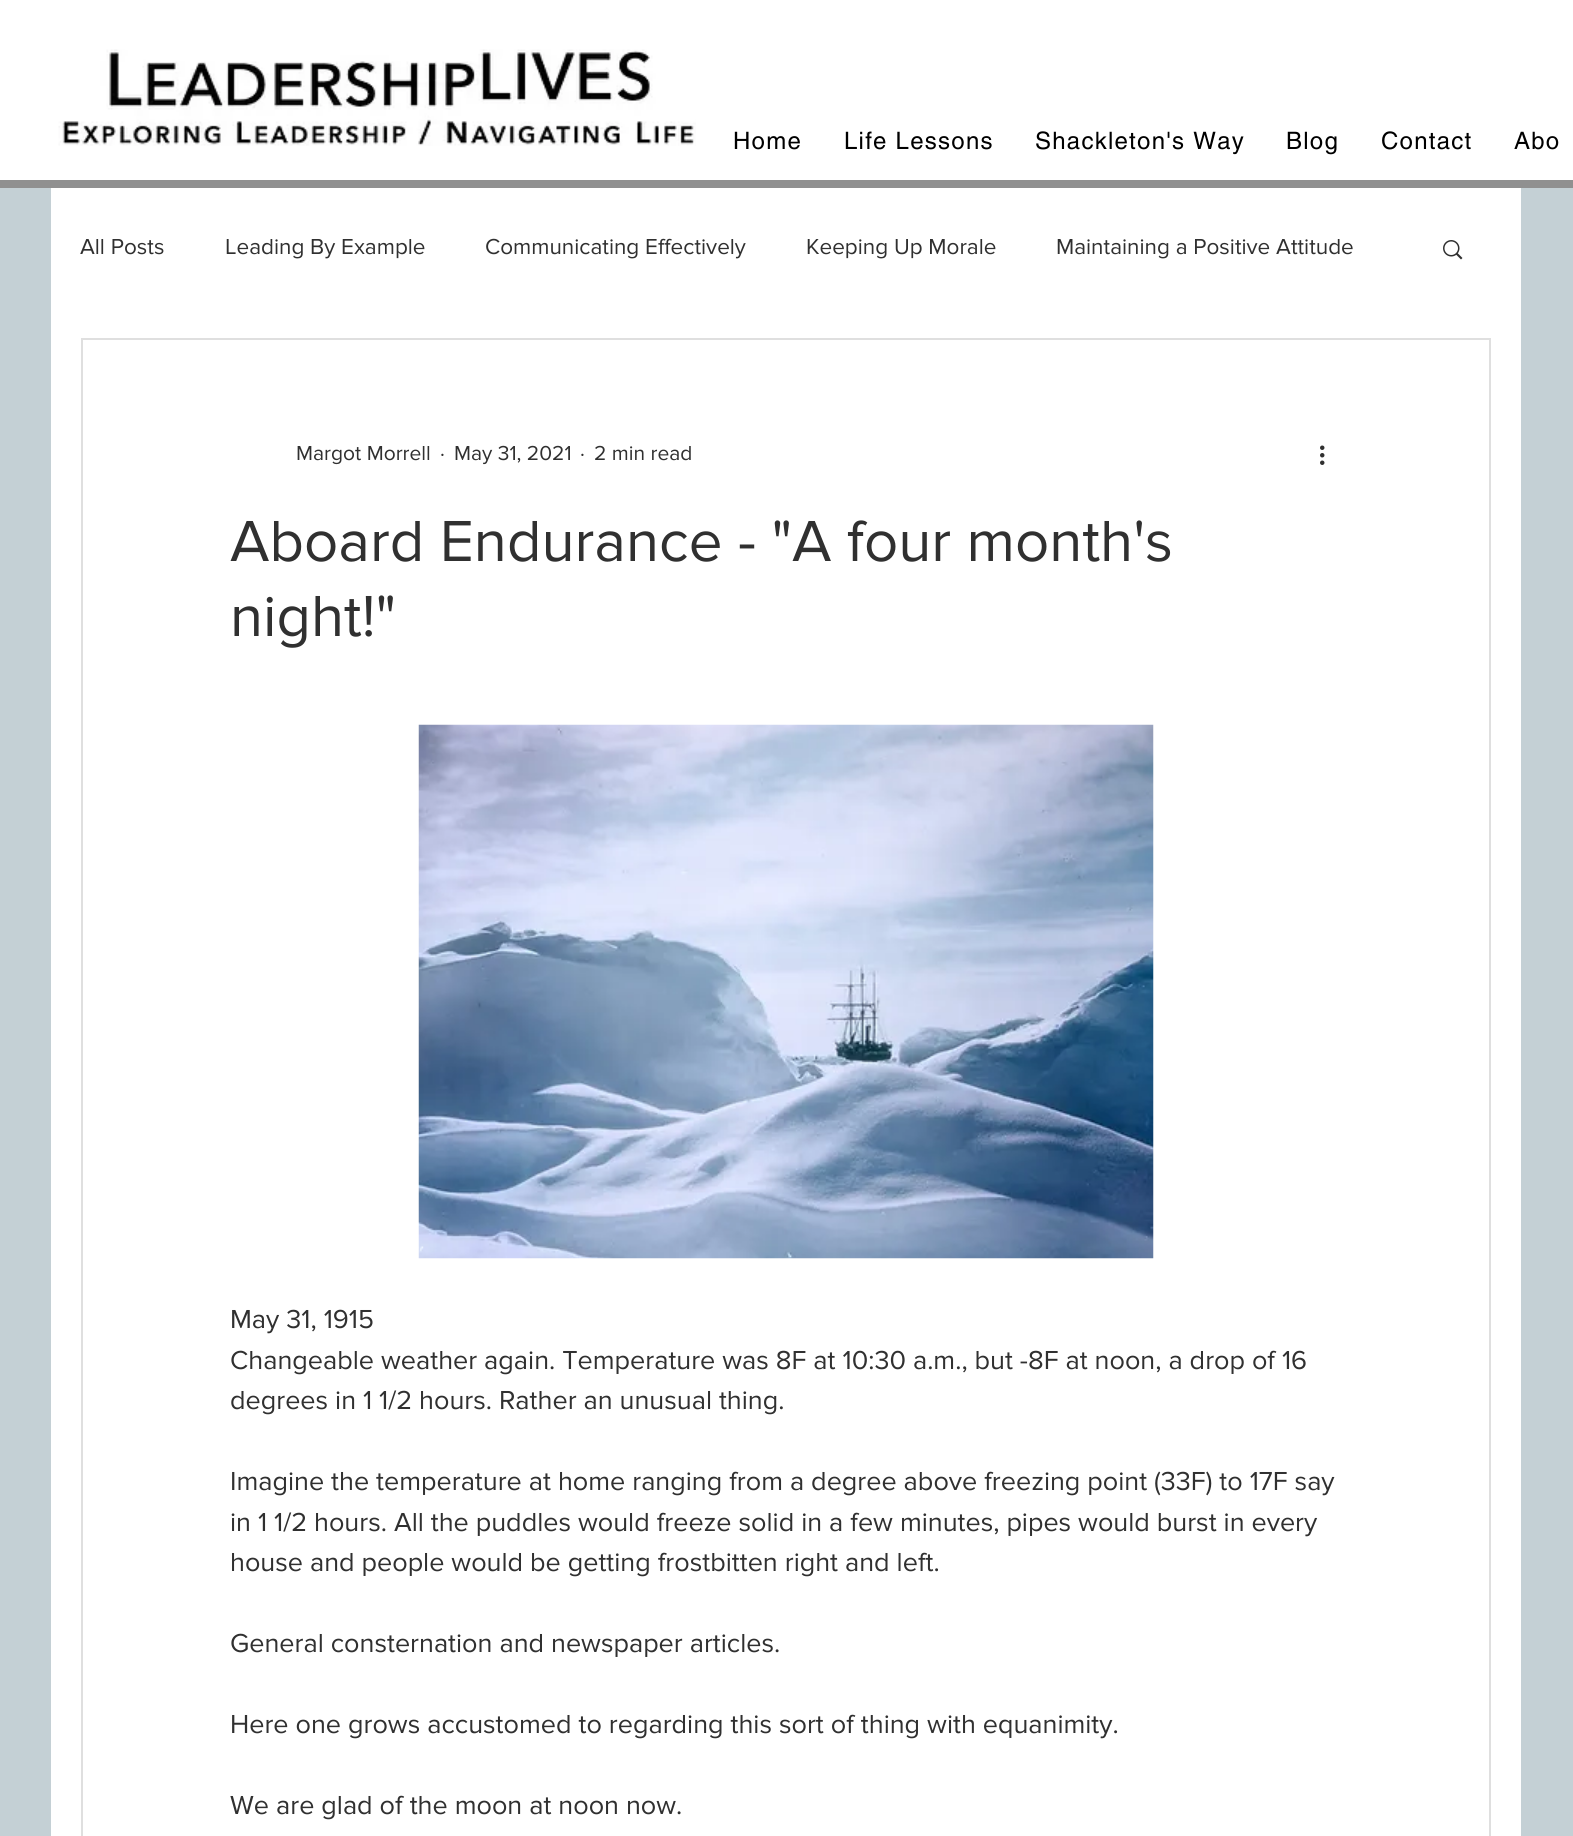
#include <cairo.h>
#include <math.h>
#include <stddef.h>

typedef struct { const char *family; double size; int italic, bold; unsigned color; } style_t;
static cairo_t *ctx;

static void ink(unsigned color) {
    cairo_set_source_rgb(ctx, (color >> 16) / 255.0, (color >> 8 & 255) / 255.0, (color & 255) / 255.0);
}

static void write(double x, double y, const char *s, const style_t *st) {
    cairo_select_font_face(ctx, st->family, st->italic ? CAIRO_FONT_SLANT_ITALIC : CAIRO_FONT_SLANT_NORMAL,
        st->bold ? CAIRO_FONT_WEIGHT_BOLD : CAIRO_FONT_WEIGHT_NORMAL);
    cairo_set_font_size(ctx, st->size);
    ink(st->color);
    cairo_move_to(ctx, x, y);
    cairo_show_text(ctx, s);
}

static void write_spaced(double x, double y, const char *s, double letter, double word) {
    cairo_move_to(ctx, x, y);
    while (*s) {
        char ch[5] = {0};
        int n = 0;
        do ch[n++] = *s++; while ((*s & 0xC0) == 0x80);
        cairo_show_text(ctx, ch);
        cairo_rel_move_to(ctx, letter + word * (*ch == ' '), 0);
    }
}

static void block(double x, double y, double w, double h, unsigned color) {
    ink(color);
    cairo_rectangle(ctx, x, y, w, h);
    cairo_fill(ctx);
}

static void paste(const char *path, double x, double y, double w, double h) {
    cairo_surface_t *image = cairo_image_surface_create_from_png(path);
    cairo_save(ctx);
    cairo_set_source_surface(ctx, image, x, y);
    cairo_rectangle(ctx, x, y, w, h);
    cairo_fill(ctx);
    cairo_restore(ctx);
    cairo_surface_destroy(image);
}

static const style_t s1 = {"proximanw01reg", 22.5, 0, 0, 0x303030};
static const style_t s2 = {"proximanw01reg", 21, 0, 0, 0x303030};
static const style_t s3 = {"proximanw01reg", 60, 0, 0, 0x303030};
static const style_t s4 = {"proximanw01reg", 27, 0, 0, 0x303030};

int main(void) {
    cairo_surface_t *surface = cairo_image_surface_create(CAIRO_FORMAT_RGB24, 1573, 1836);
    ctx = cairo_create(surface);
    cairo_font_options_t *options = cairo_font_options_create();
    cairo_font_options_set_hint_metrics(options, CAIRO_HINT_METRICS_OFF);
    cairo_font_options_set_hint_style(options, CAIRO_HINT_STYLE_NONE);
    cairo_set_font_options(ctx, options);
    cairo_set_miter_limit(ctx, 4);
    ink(0xc4d0d5);
    cairo_paint(ctx);
    block(0, 0, 1573, 180, 0xffffff);
    block(0, 180, 1573, 8, 0x909090);
    paste("pic1.png", 58, 49, 638, 97);
    cairo_select_font_face(ctx, "helvetica", CAIRO_FONT_SLANT_NORMAL, CAIRO_FONT_WEIGHT_NORMAL);
    cairo_set_font_size(ctx, 24);
    ink(0x000000);
    write_spaced(733, 149, "Home", 1.25, 0);
    write_spaced(844, 149, "Life Lessons", 1.25, 0);
    write_spaced(1035, 149, "Shackleton's Way", 1.25, 0);
    write_spaced(1286, 149, "Blog", 1.25, 0);
    write_spaced(1381, 149, "Contact", 1.25, 0);
    write_spaced(1514, 149, "Abo", 1.25, 0);
    block(51, 188, 1470, 1648, 0xffffff);
    write(80, 254, "All Posts", &s1);
    write(225, 254, "Leading By Example", &s1);
    write(485, 254, "Communicating Effectively", &s1);
    write(806, 254, "Keeping Up Morale", &s1);
    write(1056, 254, "Maintaining a Positive Attitude", &s1);
    paste("pic2.png", 1443, 240, 20, 20);
    cairo_rectangle(ctx, 82, 339, 1408, 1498);
    ink(0xdfdfdf);
    cairo_stroke(ctx);
    write(296, 460, "Margot Morrell", &s2);
    write(440, 460, "·", &s2);
    write(454, 460, "May 31, 2021", &s2);
    write(580, 460, "·", &s2);
    write(594, 460, "2 min read", &s2);
    paste("pic3.png", 1320, 445, 5, 20);
    write(230, 561, "Aboard Endurance - \"A four month's", &s3);
    write(230, 636, "night!\"", &s3);
    paste("pic4.png", 418, 724, 736, 535);
    write(230, 1328, "May 31, 1915", &s4);
    write(230, 1369, "Changeable weather again. Temperature was 8F at 10:30 a.m., but -8F at noon, a drop of 16", &s4);
    write(230, 1409, "degrees in 1 1/2 hours. Rather an unusual thing.", &s4);
    write(230, 1490, "Imagine the temperature at home ranging from a degree above freezing point (33F) to 17F say", &s4);
    write(230, 1531, "in 1 1/2 hours. All the puddles would freeze solid in a few minutes, pipes would burst in every", &s4);
    write(230, 1571, "house and people would be getting frostbitten right and left.", &s4);
    write(230, 1652, "General consternation and newspaper articles.", &s4);
    write(230, 1733, "Here one grows accustomed to regarding this sort of thing with equanimity.", &s4);
    write(230, 1814, "We are glad of the moon at noon now.", &s4);
    cairo_surface_write_to_png(surface, "screenshot.png");
    cairo_font_options_destroy(options);
    cairo_destroy(ctx);
    cairo_surface_destroy(surface);
    return 0;
}
